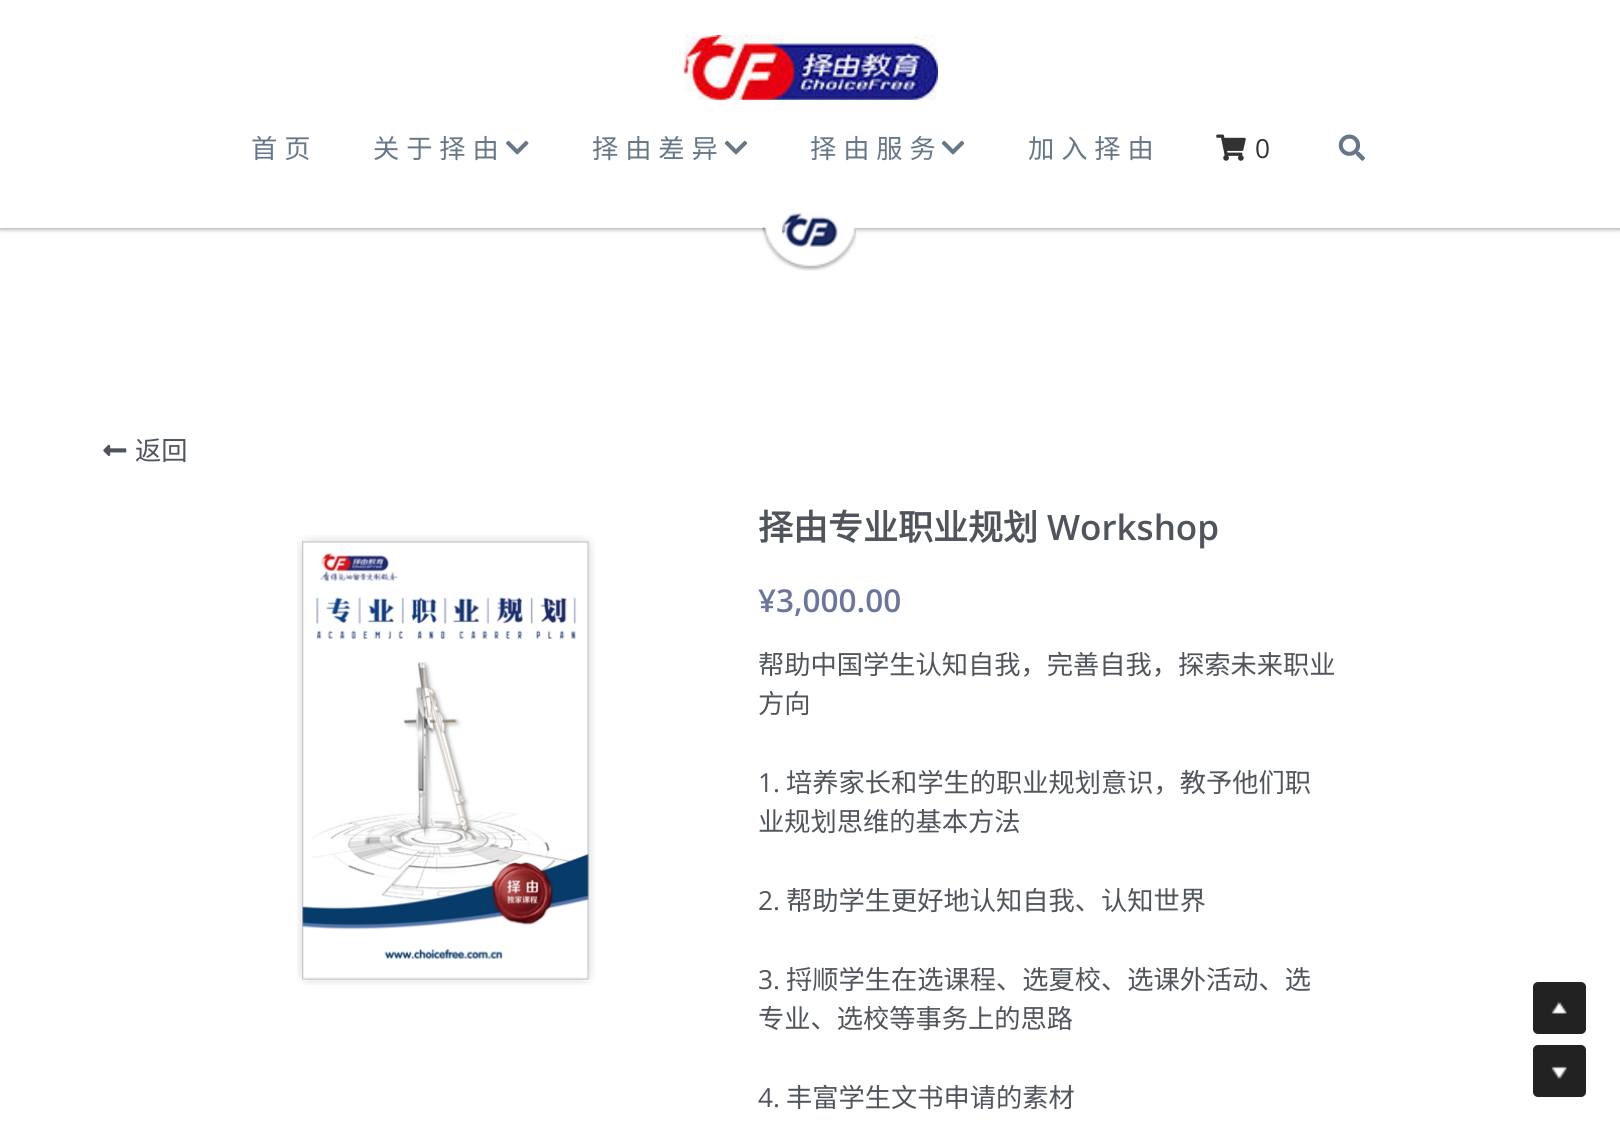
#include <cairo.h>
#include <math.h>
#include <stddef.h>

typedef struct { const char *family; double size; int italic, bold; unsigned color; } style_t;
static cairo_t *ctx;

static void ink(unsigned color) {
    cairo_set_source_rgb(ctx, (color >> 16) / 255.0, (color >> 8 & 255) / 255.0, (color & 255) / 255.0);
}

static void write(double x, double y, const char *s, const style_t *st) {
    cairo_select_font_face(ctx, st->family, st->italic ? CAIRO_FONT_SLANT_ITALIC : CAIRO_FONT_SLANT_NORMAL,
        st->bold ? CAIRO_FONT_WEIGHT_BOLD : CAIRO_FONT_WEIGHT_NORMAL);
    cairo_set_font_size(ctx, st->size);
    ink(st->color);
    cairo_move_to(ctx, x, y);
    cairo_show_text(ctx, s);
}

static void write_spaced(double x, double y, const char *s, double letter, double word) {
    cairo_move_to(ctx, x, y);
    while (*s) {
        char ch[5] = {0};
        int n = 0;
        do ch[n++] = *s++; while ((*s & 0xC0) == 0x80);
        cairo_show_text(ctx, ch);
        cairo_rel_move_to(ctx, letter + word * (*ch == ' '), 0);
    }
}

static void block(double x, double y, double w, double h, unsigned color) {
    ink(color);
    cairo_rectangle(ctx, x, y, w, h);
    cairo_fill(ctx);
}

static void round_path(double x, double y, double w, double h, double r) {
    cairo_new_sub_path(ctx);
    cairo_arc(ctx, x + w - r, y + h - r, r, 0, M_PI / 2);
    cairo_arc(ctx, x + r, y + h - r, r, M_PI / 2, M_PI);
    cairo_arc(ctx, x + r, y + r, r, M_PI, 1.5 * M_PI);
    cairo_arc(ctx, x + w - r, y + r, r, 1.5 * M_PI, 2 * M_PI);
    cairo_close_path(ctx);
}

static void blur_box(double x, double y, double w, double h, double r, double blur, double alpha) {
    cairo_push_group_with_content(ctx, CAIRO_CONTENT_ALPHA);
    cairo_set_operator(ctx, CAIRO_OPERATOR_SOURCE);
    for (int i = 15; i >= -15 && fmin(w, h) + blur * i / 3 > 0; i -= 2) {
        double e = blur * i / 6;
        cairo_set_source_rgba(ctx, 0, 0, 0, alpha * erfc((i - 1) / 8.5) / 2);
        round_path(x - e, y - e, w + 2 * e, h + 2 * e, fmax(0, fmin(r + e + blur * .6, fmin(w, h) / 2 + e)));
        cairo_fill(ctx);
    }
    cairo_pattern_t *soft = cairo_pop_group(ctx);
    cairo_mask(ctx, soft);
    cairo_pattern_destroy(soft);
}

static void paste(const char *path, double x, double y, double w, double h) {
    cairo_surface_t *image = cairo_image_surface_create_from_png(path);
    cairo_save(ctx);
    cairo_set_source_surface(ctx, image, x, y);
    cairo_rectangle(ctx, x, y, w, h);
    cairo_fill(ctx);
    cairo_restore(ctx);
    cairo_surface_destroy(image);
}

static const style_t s1 = {"Open Sans", 26.25, 0, 0, 0x333333};
static const style_t s2 = {"Noto Sans CJK SC", 26.25, 0, 0, 0x50555c};
static const style_t s3 = {"Noto Sans CJK SC", 35, 0, 1, 0x50555c};
static const style_t s4 = {"Open Sans SemiBold", 35, 0, 0, 0x50555c};
static const style_t s5 = {"Open Sans SemiBold", 31.5, 0, 0, 0x6d759c};
static const style_t s6 = {"Open Sans", 26.25, 0, 0, 0x50555c};

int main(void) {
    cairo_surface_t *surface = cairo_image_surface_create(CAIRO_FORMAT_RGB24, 1620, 1132);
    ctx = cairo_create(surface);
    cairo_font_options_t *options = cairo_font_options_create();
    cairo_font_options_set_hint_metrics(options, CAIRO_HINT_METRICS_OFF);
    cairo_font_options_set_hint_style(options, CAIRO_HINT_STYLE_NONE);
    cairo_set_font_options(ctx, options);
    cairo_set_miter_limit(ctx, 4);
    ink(0xffffff);
    cairo_paint(ctx);
    ink(0x000000);
    blur_box(0, 2, 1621, 227, 0, 2.5, 0.4);
    block(0, 0, 1620, 228, 0xffffff);
    paste("pic1.png", 683, 35, 255, 65);
    cairo_select_font_face(ctx, "Noto Sans CJK SC", CAIRO_FONT_SLANT_NORMAL, CAIRO_FONT_WEIGHT_NORMAL);
    cairo_set_font_size(ctx, 26.25);
    ink(0x667788);
    write_spaced(251, 158, "首 页", 0, 1);
    write_spaced(373, 158, "关 于 择 由", 0, 1);
    paste("pic2.png", 506, 140, 23, 15);
    write_spaced(592, 158, "择 由 差 异", 0, 1);
    paste("pic3.png", 724, 140, 24, 15);
    write_spaced(810, 158, "择 由 服 务", 0, 1);
    paste("pic3.png", 941, 140, 24, 15);
    write_spaced(1028, 158, "加 入 择 由", 0, 1);
    paste("pic4.png", 1216, 134, 30, 27);
    write(1255, 158, "0", &s1);
    paste("pic5.png", 1338, 134, 27, 27);
    paste("pic6.png", 762, 227, 95, 44);
    paste("pic7.png", 782, 212, 56, 35);
    paste("pic8.png", 103, 444, 24, 12);
    write(135, 460, "返回", &s2);
    paste("pic9.png", 297, 535, 298, 450);
    write(758, 540, "择由专业职业规划", &s3);
    write(1047, 540, "Workshop", &s4);
    write(758, 612, "¥3,000.00", &s5);
    write(758, 674, "帮助中国学生认知自我，完善自我，探索未来职业", &s2);
    write(758, 713, "方向", &s2);
    write(758, 792, "1.", &s6);
    write(786, 792, "培养家长和学生的职业规划意识，教予他们职", &s2);
    write(758, 831, "业规划思维的基本方法", &s2);
    write(758, 910, "2.", &s6);
    write(786, 910, "帮助学生更好地认知自我、认知世界", &s2);
    write(758, 989, "3.", &s6);
    write(786, 989, "捋顺学生在选课程、选夏校、选课外活动、选", &s2);
    write(758, 1028, "专业、选校等事务上的思路", &s2);
    write(758, 1107, "4.", &s6);
    write(786, 1107, "丰富学生文书申请的素材", &s2);
    ink(0x222222);
    round_path(1533, 982, 53, 52, 5);
    cairo_fill(ctx);
    paste("pic10.png", 1551, 1001, 16, 13);
    round_path(1533, 1045, 53, 52, 5);
    cairo_fill(ctx);
    paste("pic11.png", 1551, 1066, 16, 13);
    cairo_surface_write_to_png(surface, "screenshot.png");
    cairo_font_options_destroy(options);
    cairo_destroy(ctx);
    cairo_surface_destroy(surface);
    return 0;
}
